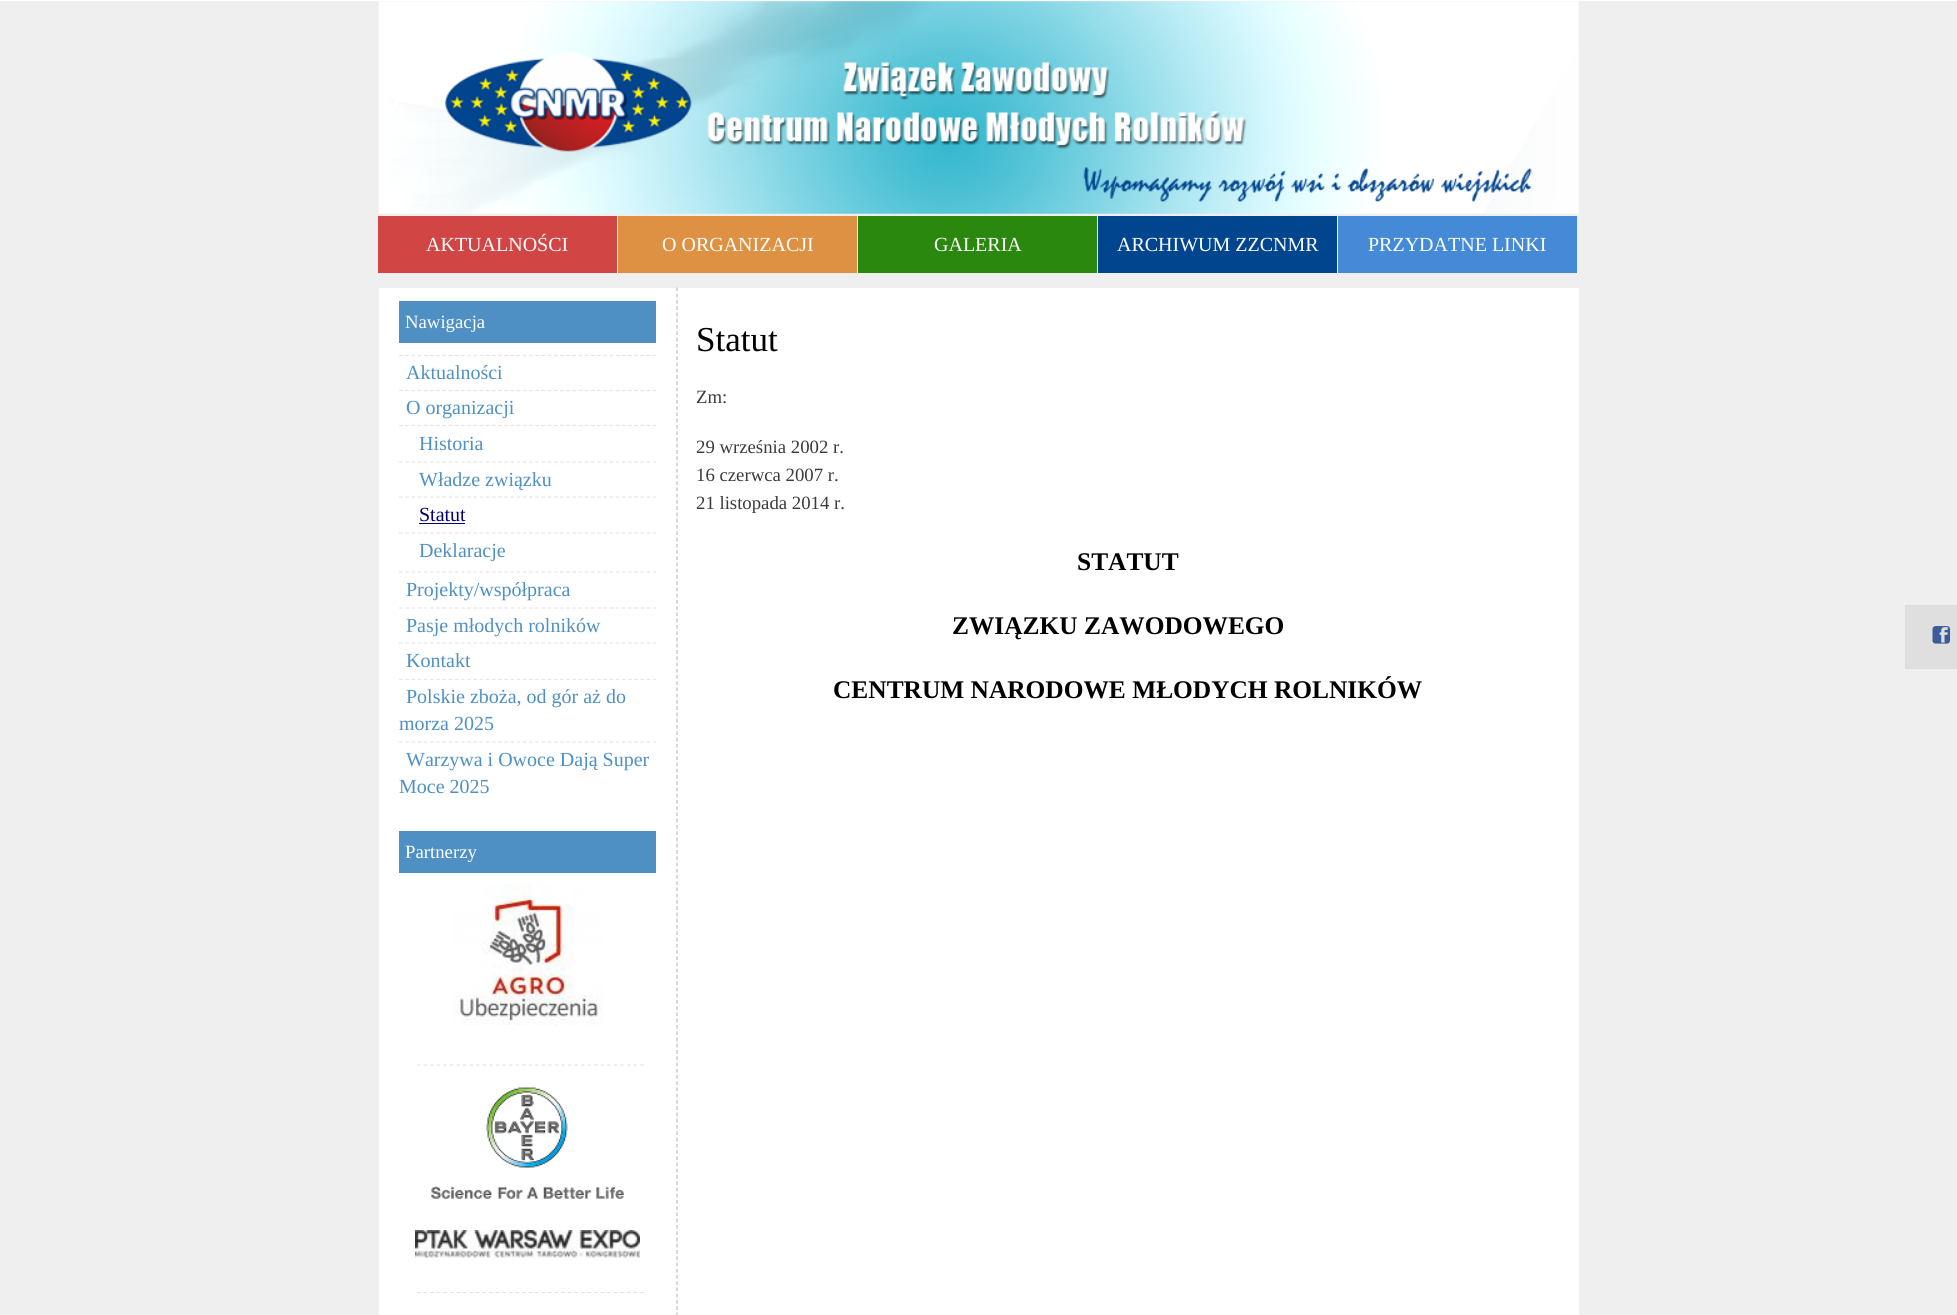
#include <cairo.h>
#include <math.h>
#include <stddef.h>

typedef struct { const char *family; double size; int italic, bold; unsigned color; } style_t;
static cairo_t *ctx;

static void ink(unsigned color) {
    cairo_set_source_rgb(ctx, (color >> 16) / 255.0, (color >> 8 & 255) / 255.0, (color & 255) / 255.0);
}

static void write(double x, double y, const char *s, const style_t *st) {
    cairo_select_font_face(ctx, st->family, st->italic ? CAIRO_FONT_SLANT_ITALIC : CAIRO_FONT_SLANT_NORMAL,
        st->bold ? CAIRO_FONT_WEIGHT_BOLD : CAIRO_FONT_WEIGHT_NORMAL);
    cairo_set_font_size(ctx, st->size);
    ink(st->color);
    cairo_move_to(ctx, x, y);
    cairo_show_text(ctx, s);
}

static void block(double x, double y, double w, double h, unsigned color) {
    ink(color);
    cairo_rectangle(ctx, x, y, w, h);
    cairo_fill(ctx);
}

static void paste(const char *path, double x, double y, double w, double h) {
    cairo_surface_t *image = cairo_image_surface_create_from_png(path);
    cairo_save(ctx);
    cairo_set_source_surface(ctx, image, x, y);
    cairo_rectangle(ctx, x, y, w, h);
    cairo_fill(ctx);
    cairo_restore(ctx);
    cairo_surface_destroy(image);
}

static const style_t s1 = {"Liberation Serif", 20, 0, 0, 0xffffff};
static const style_t s2 = {"Liberation Serif", 18.75, 0, 0, 0xffffff};
static const style_t s3 = {"Liberation Serif", 20, 0, 0, 0x4f90c4};
static const style_t s4 = {"Liberation Serif", 20, 0, 0, 0x000070};
static const style_t s5 = {"Liberation Serif", 35, 0, 0, 0x000000};
static const style_t s6 = {"Liberation Serif", 18.75, 0, 0, 0x3b3b3b};
static const style_t s7 = {"Liberation Serif", 25.4, 0, 1, 0x000000};

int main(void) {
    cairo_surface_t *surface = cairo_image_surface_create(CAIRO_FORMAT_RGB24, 1957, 1315);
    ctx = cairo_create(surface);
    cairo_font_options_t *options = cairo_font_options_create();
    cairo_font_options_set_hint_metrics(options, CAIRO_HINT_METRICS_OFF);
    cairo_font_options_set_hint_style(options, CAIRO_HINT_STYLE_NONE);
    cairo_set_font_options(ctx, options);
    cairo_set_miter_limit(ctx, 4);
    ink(0xffffff);
    cairo_paint(ctx);
    block(0, 1, 1957, 1314, 0xefefef);
    paste("pic1.png", 378, 1, 1201, 213);
    block(378, 216, 239, 57, 0xd14644);
    write(426, 251, "AKTUALNOŚCI", &s1);
    block(618, 216, 239, 57, 0xde9043);
    write(662, 251, "O ORGANIZACJI", &s1);
    block(858, 216, 239, 57, 0x2b880e);
    write(934, 251, "GALERIA", &s1);
    block(1098, 216, 239, 57, 0x01458e);
    write(1117, 251, "ARCHIWUM ZZCNMR", &s1);
    block(1338, 216, 239, 57, 0x448ad6);
    write(1368, 251, "PRZYDATNE LINKI", &s1);
    block(379, 288, 1200, 1027, 0xffffff);
    cairo_new_path(ctx);
    cairo_move_to(ctx, 677, 287.5);
    cairo_line_to(ctx, 677, 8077.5);
    ink(0xbebebe);
    cairo_set_line_width(ctx, 1.2);
    cairo_set_dash(ctx, (double[]){3.75, 2.5}, 2, 0);
    cairo_stroke(ctx);
    block(399, 301, 257, 42, 0x4f90c4);
    write(405, 328, "Nawigacja", &s2);
    cairo_new_path(ctx);
    cairo_move_to(ctx, 399, 355.5);
    cairo_line_to(ctx, 656, 355.5);
    ink(0xe6e6e6);
    cairo_set_dash(ctx, (double[]){3.75, 2.44}, 2, 0);
    cairo_stroke(ctx);
    write(406, 379, "Aktualności", &s3);
    cairo_new_path(ctx);
    cairo_move_to(ctx, 399, 390.5);
    cairo_line_to(ctx, 656, 390.5);
    ink(0xe6e6e6);
    cairo_stroke(ctx);
    write(406, 414, "O organizacji", &s3);
    cairo_new_path(ctx);
    cairo_move_to(ctx, 399, 425.5);
    cairo_line_to(ctx, 656, 425.5);
    ink(0xe6e6e6);
    cairo_stroke(ctx);
    write(419, 450, "Historia", &s3);
    cairo_new_path(ctx);
    cairo_move_to(ctx, 399, 462);
    cairo_line_to(ctx, 656, 462);
    ink(0xe6e6e6);
    cairo_stroke(ctx);
    write(419, 486, "Władze związku", &s3);
    cairo_new_path(ctx);
    cairo_move_to(ctx, 399, 497);
    cairo_line_to(ctx, 656, 497);
    ink(0xe6e6e6);
    cairo_stroke(ctx);
    write(419, 521, "Statut", &s4);
    block(419, 523, 46, 1, 0x000070);
    cairo_new_path(ctx);
    cairo_move_to(ctx, 399, 533);
    cairo_line_to(ctx, 656, 533);
    ink(0xe6e6e6);
    cairo_stroke(ctx);
    write(419, 557, "Deklaracje", &s3);
    cairo_new_path(ctx);
    cairo_move_to(ctx, 399, 572);
    cairo_line_to(ctx, 656, 572);
    ink(0xe6e6e6);
    cairo_stroke(ctx);
    write(406, 596, "Projekty/współpraca", &s3);
    cairo_new_path(ctx);
    cairo_move_to(ctx, 399, 608);
    cairo_line_to(ctx, 656, 608);
    ink(0xe6e6e6);
    cairo_stroke(ctx);
    write(406, 632, "Pasje młodych rolników", &s3);
    cairo_new_path(ctx);
    cairo_move_to(ctx, 399, 643);
    cairo_line_to(ctx, 656, 643);
    ink(0xe6e6e6);
    cairo_stroke(ctx);
    write(406, 667, "Kontakt", &s3);
    cairo_new_path(ctx);
    cairo_move_to(ctx, 399, 679.5);
    cairo_line_to(ctx, 656, 679.5);
    ink(0xe6e6e6);
    cairo_stroke(ctx);
    write(406, 703, "Polskie zboża, od gór aż do", &s3);
    write(399, 730, "morza 2025", &s3);
    cairo_new_path(ctx);
    cairo_move_to(ctx, 399, 742);
    cairo_line_to(ctx, 656, 742);
    ink(0xe6e6e6);
    cairo_stroke(ctx);
    write(406, 766, "Warzywa i Owoce Dają Super", &s3);
    write(399, 793, "Moce 2025", &s3);
    block(399, 831, 257, 42, 0x4f90c4);
    write(405, 858, "Partnerzy", &s2);
    paste("pic2.png", 453, 885, 150, 140);
    paste("pic3.png", 417, 1064, 227, 2);
    paste("pic4.png", 431, 1087, 193, 112);
    paste("pic5.png", 415, 1230, 225, 28);
    paste("pic6.png", 417, 1292, 227, 1);
    write(696, 351, "Statut", &s5);
    write(696, 403, "Zm:", &s6);
    write(696, 453, "29 września 2002 r.", &s6);
    write(696, 481, "16 czerwca 2007 r.", &s6);
    write(696, 509, "21 listopada 2014 r.", &s6);
    write(1077, 570, "STATUT", &s7);
    write(952, 634, "ZWIĄZKU ZAWODOWEGO", &s7);
    write(833, 698, "CENTRUM NARODOWE MŁODYCH ROLNIKÓW", &s7);
    block(1906, 606, 51, 62, 0xdfdfdf);
    block(1905, 605, 52, 1, 0xdddddd);
    block(1905, 668, 52, 1, 0xdddddd);
    block(1905, 605, 1, 64, 0xdddddd);
    paste("pic7.png", 1932, 626, 18, 18);
    cairo_surface_write_to_png(surface, "screenshot.png");
    cairo_font_options_destroy(options);
    cairo_destroy(ctx);
    cairo_surface_destroy(surface);
    return 0;
}
